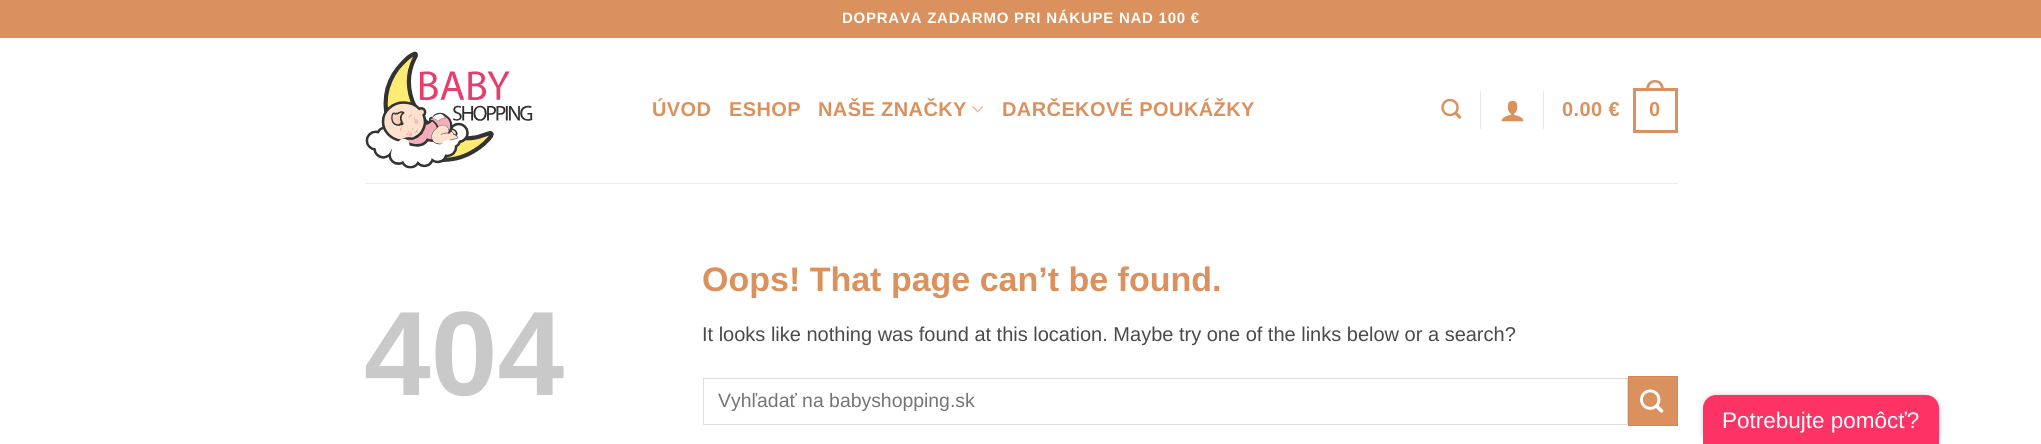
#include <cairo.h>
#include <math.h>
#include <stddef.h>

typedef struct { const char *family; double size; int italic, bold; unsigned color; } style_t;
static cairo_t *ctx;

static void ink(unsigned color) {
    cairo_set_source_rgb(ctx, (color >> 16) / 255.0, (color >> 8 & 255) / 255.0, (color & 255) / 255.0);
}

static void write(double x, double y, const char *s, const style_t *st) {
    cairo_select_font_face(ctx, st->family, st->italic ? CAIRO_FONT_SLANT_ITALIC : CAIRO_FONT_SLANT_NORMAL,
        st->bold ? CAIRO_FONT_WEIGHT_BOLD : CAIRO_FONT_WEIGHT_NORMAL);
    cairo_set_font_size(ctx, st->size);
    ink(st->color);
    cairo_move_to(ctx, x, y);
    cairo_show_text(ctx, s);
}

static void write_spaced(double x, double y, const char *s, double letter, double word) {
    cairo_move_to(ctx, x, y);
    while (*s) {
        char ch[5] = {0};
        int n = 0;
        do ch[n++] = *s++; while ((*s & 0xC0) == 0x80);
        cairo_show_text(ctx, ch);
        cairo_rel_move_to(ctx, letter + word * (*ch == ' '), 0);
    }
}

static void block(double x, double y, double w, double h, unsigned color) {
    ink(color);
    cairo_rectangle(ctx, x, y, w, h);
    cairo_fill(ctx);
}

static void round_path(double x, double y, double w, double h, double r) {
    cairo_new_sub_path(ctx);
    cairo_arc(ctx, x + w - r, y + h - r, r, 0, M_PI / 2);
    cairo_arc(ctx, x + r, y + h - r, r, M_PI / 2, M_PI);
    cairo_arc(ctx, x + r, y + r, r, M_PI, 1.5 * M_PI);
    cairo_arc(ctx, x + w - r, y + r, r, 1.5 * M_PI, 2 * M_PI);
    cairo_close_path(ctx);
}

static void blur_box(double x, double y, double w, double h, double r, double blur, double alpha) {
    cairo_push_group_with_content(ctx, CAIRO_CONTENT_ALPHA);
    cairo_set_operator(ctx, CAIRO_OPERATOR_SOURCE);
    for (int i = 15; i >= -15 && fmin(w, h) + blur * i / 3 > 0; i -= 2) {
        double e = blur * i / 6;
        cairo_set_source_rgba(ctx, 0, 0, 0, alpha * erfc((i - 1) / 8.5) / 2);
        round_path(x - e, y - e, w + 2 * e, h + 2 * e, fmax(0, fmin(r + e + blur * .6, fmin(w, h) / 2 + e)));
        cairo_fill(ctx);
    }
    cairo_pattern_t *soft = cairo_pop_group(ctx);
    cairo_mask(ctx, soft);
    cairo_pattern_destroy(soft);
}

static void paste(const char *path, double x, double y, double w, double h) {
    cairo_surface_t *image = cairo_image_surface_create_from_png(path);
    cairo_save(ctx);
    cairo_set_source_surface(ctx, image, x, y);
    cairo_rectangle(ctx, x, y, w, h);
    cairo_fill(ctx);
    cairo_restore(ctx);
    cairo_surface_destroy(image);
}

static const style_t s1 = {"Liberation Sans", 120, 0, 1, 0xc9c9c9};
static const style_t s2 = {"Liberation Sans", 34, 0, 1, 0xdb915e};
static const style_t s3 = {"Liberation Sans", 20, 0, 0, 0x4a4a4a};
static const style_t s4 = {"Liberation Sans", 19.4, 0, 0, 0x757575};
static const style_t s5 = {"Liberation Sans", 22.5, 0, 0, 0xffffff};

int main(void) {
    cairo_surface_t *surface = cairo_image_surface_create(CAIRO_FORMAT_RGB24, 2041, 444);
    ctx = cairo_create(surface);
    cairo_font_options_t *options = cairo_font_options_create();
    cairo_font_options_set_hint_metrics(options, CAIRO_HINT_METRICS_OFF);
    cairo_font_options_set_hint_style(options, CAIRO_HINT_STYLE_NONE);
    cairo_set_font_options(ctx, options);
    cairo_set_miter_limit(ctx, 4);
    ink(0xffffff);
    cairo_paint(ctx);
    block(0, 0, 2041, 38, 0xdb915e);
    cairo_select_font_face(ctx, "Liberation Sans", CAIRO_FONT_SLANT_NORMAL, CAIRO_FONT_WEIGHT_BOLD);
    cairo_set_font_size(ctx, 15);
    ink(0xffffff);
    write_spaced(842, 23, "DOPRAVA ZADARMO PRI NÁKUPE NAD 100 €", 0.75, 0);
    paste("pic1.png", 365, 51, 168, 118);
    cairo_set_font_size(ctx, 20);
    ink(0xdb915e);
    write_spaced(652, 116, "ÚVOD", 0.4, 0);
    write_spaced(729, 116, "ESHOP", 0.4, 0);
    write_spaced(818, 116, "NAŠE ZNAČKY", 0.4, 0);
    paste("pic2.png", 972, 106, 12, 7);
    write_spaced(1002, 116, "DARČEKOVÉ POUKÁŽKY", 0.4, 0);
    paste("pic3.png", 1441, 98, 21, 21);
    block(1480, 91, 1, 38, 0xe6e6e6);
    paste("pic4.png", 1501, 100, 23, 22);
    block(1543, 91, 1, 38, 0xe6e6e6);
    ink(0xdb915e);
    write_spaced(1562, 116, "0.00 €", 0.4, 0);
    cairo_rectangle(ctx, 1634.5, 89.5, 42, 42);
    cairo_set_line_width(ctx, 3);
    cairo_stroke(ctx);
    cairo_set_fill_rule(ctx, CAIRO_FILL_RULE_EVEN_ODD);
    cairo_new_path(ctx);
    cairo_move_to(ctx, 1655, 80);
    cairo_curve_to(ctx, 1661, 80, 1664, 84.5, 1664, 90);
    cairo_line_to(ctx, 1646, 90);
    cairo_curve_to(ctx, 1646, 84.5, 1649, 80, 1655, 80);
    cairo_close_path(ctx);
    cairo_move_to(ctx, 1655, 82.5);
    cairo_curve_to(ctx, 1659.5, 82.5, 1661, 86, 1661, 90);
    cairo_line_to(ctx, 1649, 90);
    cairo_curve_to(ctx, 1649, 86, 1650.5, 82.5, 1655, 82.5);
    cairo_close_path(ctx);
    cairo_fill(ctx);
    write_spaced(1649, 116, "0", 0.4, 0);
    block(365, 183, 1313, 1, 0xededed);
    write(364, 395, "404", &s1);
    write(702, 291, "Oops! That page can’t be found.", &s2);
    write(702, 341, "It looks like nothing was found at this location. Maybe try one of the links below or a search?", &s3);
    cairo_rectangle(ctx, 703.5, 378.5, 924, 46);
    ink(0xdddddd);
    cairo_set_line_width(ctx, 1);
    cairo_stroke(ctx);
    write(718, 407, "Vyhľadať na babyshopping.sk", &s4);
    ink(0xdb915e);
    cairo_rectangle(ctx, 1628.5, 376.5, 49, 49);
    cairo_fill_preserve(ctx);
    ink(0xd08a59);
    cairo_stroke(ctx);
    paste("pic5.png", 1640, 389, 24, 24);
    ink(0x000000);
    blur_box(1703, 395, 236, 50, 13, 3, 0.2);
    ink(0xfe3365);
    cairo_new_path(ctx);
    cairo_move_to(ctx, 1716, 395);
    cairo_line_to(ctx, 1926, 395);
    cairo_curve_to(ctx, 1933, 395, 1939, 401, 1939, 408);
    cairo_line_to(ctx, 1939, 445);
    cairo_line_to(ctx, 1703, 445);
    cairo_line_to(ctx, 1703, 408);
    cairo_curve_to(ctx, 1703, 401, 1709, 395, 1716, 395);
    cairo_close_path(ctx);
    cairo_fill(ctx);
    write(1722, 428, "Potrebujte pomôcť?", &s5);
    cairo_surface_write_to_png(surface, "screenshot.png");
    cairo_font_options_destroy(options);
    cairo_destroy(ctx);
    cairo_surface_destroy(surface);
    return 0;
}
